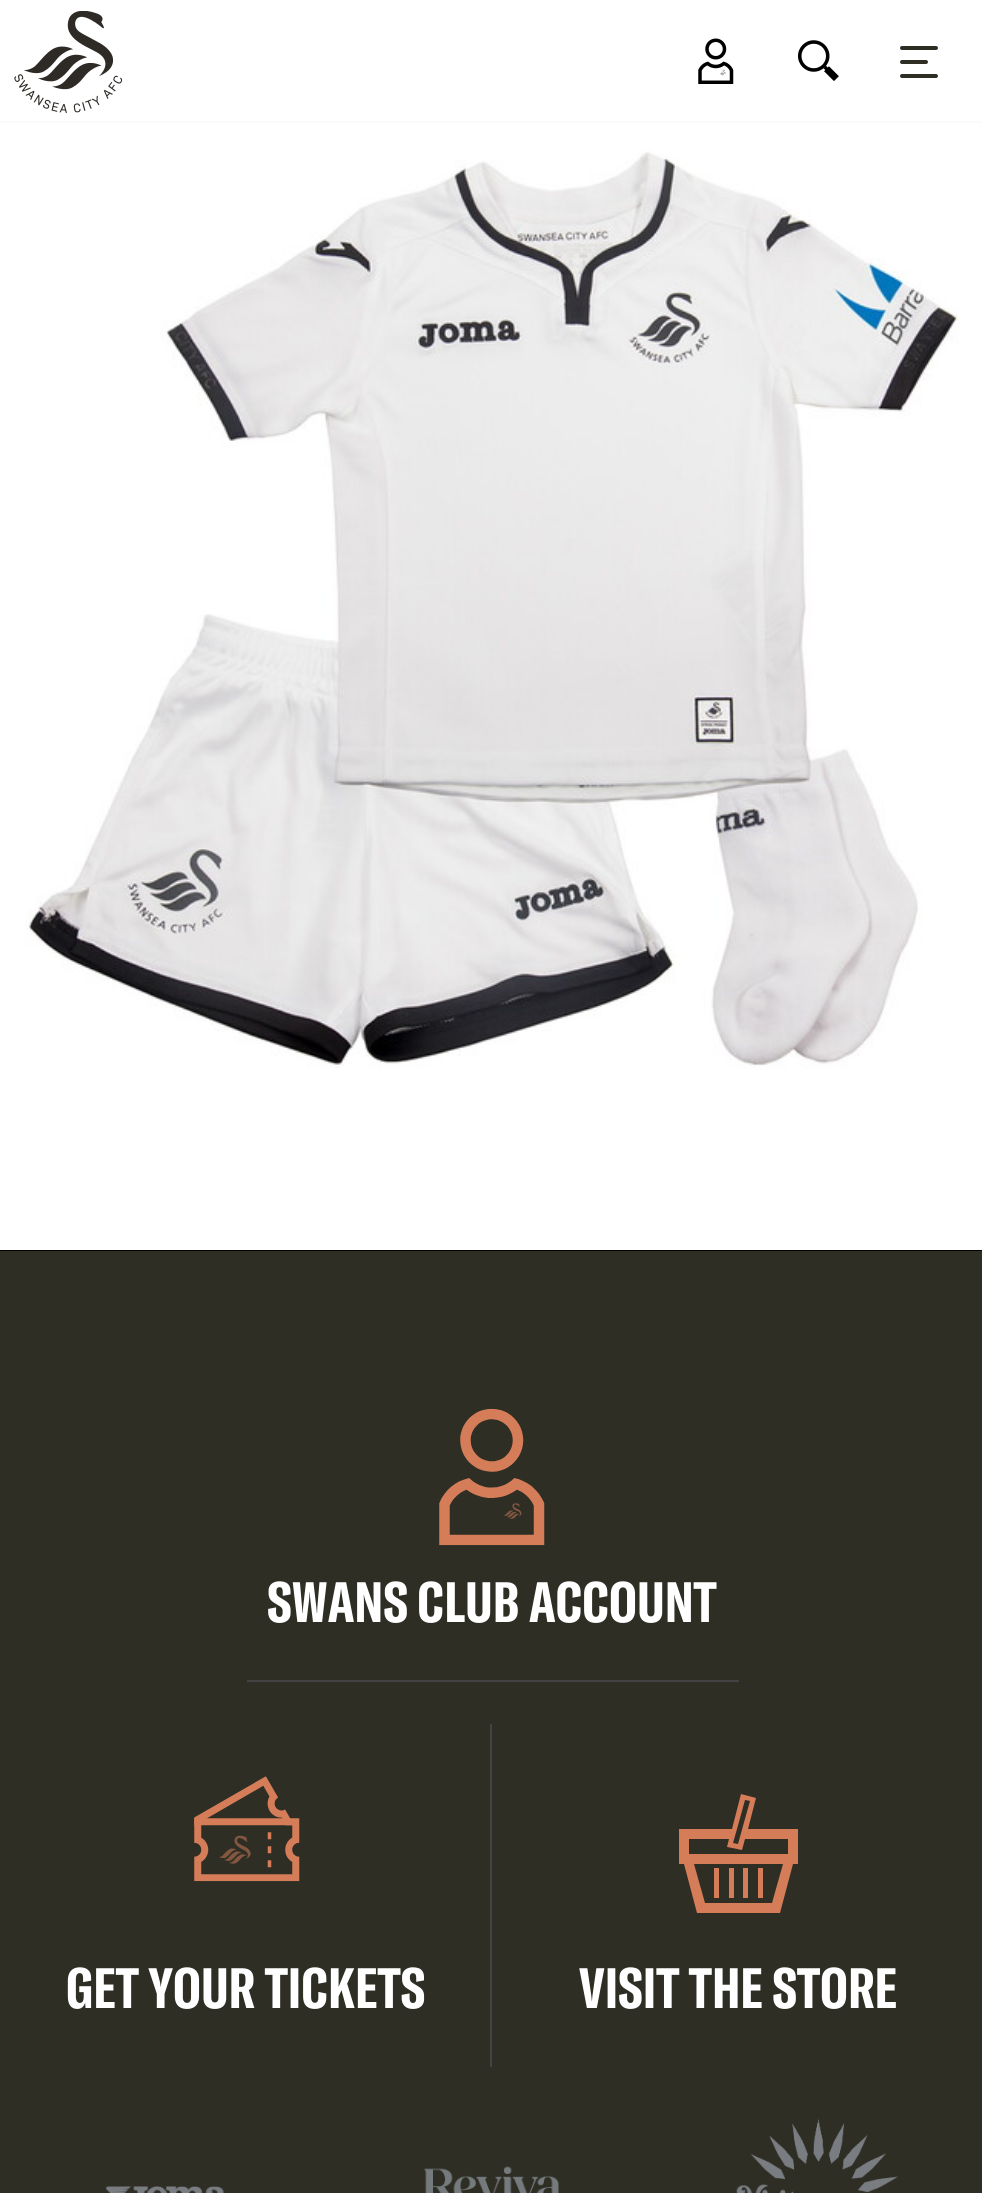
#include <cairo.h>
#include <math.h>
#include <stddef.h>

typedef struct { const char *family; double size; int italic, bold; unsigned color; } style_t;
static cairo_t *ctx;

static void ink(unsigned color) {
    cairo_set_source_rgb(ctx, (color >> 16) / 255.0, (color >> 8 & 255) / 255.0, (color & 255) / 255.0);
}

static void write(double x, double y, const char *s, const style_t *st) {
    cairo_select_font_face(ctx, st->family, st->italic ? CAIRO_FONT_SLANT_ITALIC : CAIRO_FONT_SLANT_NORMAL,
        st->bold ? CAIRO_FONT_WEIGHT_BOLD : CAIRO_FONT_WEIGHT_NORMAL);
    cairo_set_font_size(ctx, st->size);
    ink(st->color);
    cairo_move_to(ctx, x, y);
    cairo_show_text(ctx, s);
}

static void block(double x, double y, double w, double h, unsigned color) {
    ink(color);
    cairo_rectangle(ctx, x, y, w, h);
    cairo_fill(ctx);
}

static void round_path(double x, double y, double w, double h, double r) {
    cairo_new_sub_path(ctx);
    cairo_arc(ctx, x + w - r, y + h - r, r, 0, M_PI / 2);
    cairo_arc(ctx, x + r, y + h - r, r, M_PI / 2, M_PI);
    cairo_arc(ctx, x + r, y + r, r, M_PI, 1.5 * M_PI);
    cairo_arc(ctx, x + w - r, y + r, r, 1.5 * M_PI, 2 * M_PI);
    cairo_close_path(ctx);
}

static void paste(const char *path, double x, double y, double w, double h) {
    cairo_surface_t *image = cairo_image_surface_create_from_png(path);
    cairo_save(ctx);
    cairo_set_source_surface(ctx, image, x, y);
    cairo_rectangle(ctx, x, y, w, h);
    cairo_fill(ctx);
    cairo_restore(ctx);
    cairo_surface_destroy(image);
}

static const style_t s1 = {"GT America", 56, 0, 1, 0xffffff};

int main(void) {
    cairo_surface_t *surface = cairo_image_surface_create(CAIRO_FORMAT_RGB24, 982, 2193);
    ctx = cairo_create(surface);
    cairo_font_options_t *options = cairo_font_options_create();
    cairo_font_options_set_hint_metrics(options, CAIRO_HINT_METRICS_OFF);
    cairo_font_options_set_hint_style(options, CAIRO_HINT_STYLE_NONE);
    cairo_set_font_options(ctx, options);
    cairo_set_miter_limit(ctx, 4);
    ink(0xffffff);
    cairo_paint(ctx);
    block(0, 121, 982, 2, 0xfafafa);
    paste("pic1.png", 14, 11, 109, 102);
    paste("pic2.png", 698, 38, 36, 46);
    paste("pic3.png", 798, 40, 41, 41);
    ink(0x2e2e25);
    round_path(900, 46, 38, 4, 2);
    cairo_fill(ctx);
    round_path(900, 60, 28, 4, 2);
    cairo_fill(ctx);
    round_path(900, 74, 38, 4, 2);
    cairo_fill(ctx);
    paste("pic4.png", 25, 149, 935, 920);
    block(0, 1251, 982, 942, 0x2e2e25);
    block(0, 1250, 982, 1, 0x000000);
    paste("pic5.png", 439, 1408, 106, 138);
    write(267, 1622, "SWANS CLUB ACCOUNT", &s1);
    block(247, 1680, 492, 2, 0x434343);
    paste("pic6.png", 194, 1776, 106, 106);
    write(66, 2008, "GET YOUR TICKETS", &s1);
    block(490, 1724, 2, 343, 0x434343);
    block(714, 1868, 5, 30, 0xd57d59);
    block(729, 1868, 5, 30, 0xd57d59);
    block(743, 1868, 5, 30, 0xd57d59);
    block(758, 1868, 5, 30, 0xd57d59);
    cairo_new_path(ctx);
    cairo_move_to(ctx, 788, 1829);
    cairo_line_to(ctx, 748, 1829);
    cairo_line_to(ctx, 756, 1798);
    cairo_line_to(ctx, 741, 1794);
    cairo_line_to(ctx, 732, 1829);
    cairo_line_to(ctx, 679, 1829);
    cairo_line_to(ctx, 679, 1864);
    cairo_line_to(ctx, 684, 1864);
    cairo_line_to(ctx, 697, 1913);
    cairo_line_to(ctx, 780, 1913);
    cairo_line_to(ctx, 793, 1864);
    cairo_line_to(ctx, 798, 1864);
    cairo_line_to(ctx, 798, 1829);
    cairo_close_path(ctx);
    cairo_move_to(ctx, 745, 1800);
    cairo_line_to(ctx, 750, 1801);
    cairo_line_to(ctx, 738, 1844);
    cairo_line_to(ctx, 733, 1843);
    cairo_line_to(ctx, 737, 1829);
    cairo_close_path(ctx);
    cairo_move_to(ctx, 729, 1839);
    cairo_line_to(ctx, 727, 1847);
    cairo_line_to(ctx, 742, 1850);
    cairo_line_to(ctx, 745, 1839);
    cairo_line_to(ctx, 788, 1839);
    cairo_line_to(ctx, 788, 1854);
    cairo_line_to(ctx, 689, 1854);
    cairo_line_to(ctx, 689, 1839);
    cairo_close_path(ctx);
    cairo_move_to(ctx, 772, 1903);
    cairo_line_to(ctx, 705, 1903);
    cairo_line_to(ctx, 694, 1864);
    cairo_line_to(ctx, 783, 1864);
    cairo_close_path(ctx);
    cairo_fill(ctx);
    write(579, 2008, "VISIT THE STORE", &s1);
    paste("pic7.png", 105, 2186, 119, 7);
    paste("pic8.png", 424, 2166, 135, 27);
    paste("pic9.png", 736, 2119, 162, 74);
    cairo_surface_write_to_png(surface, "screenshot.png");
    cairo_font_options_destroy(options);
    cairo_destroy(ctx);
    cairo_surface_destroy(surface);
    return 0;
}
